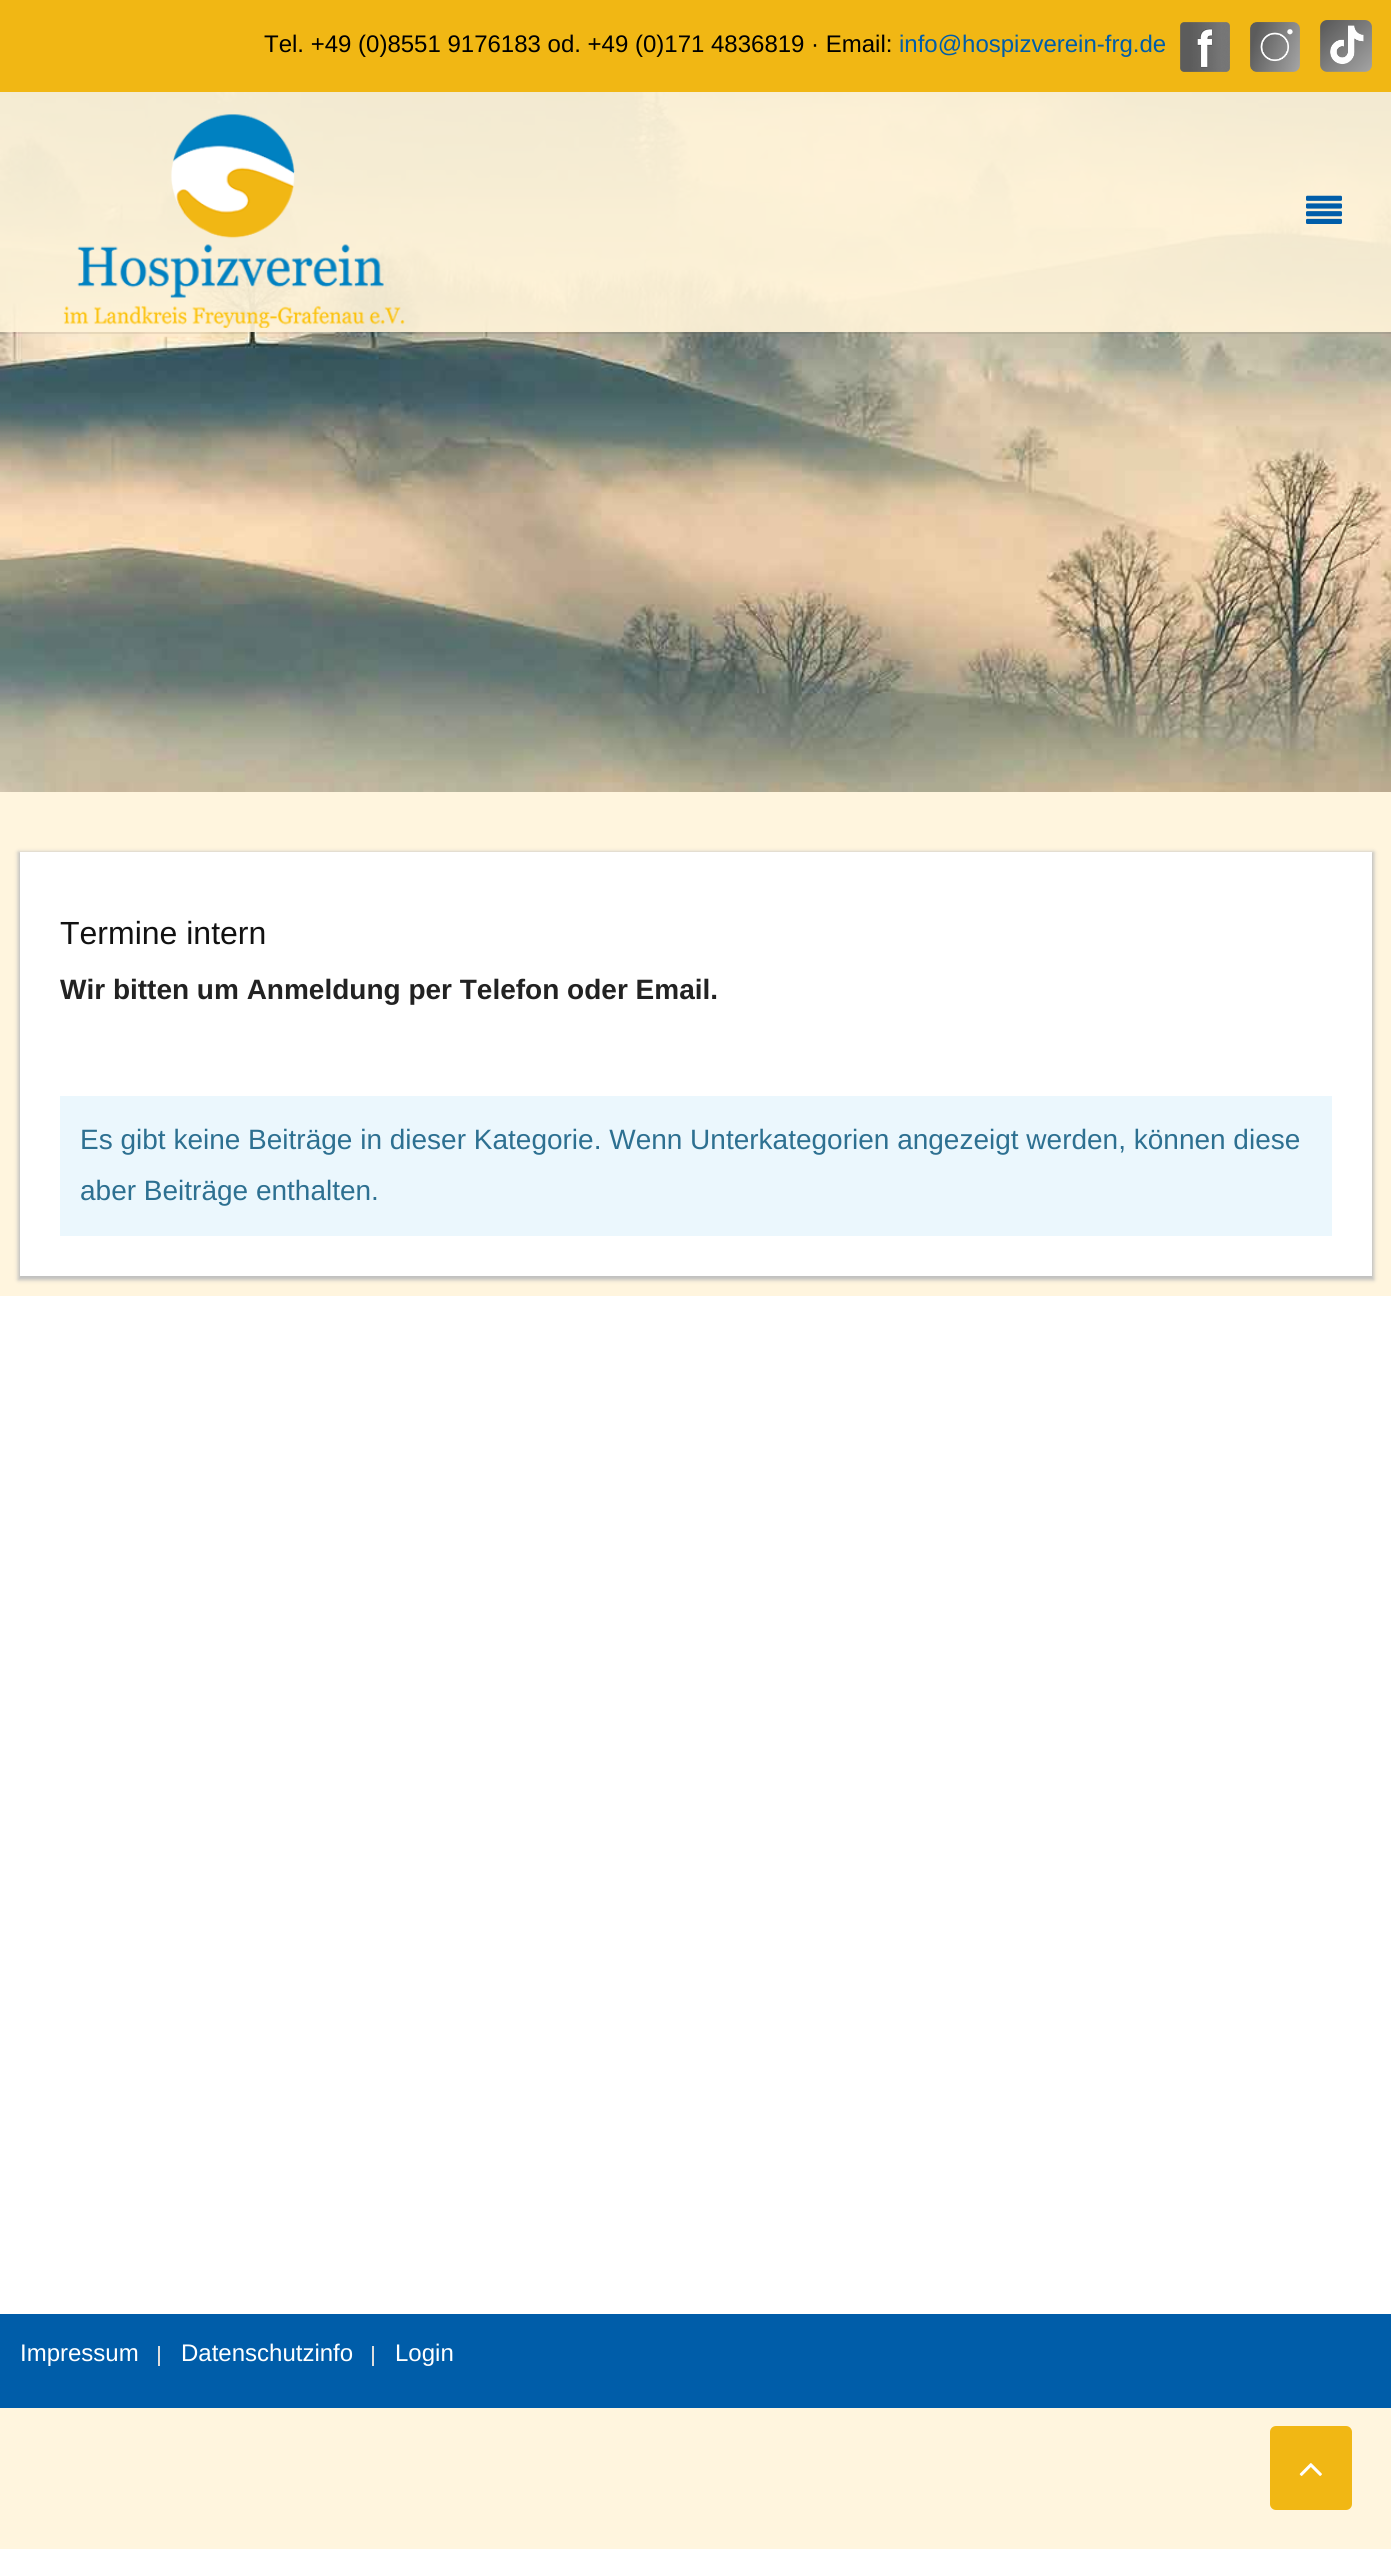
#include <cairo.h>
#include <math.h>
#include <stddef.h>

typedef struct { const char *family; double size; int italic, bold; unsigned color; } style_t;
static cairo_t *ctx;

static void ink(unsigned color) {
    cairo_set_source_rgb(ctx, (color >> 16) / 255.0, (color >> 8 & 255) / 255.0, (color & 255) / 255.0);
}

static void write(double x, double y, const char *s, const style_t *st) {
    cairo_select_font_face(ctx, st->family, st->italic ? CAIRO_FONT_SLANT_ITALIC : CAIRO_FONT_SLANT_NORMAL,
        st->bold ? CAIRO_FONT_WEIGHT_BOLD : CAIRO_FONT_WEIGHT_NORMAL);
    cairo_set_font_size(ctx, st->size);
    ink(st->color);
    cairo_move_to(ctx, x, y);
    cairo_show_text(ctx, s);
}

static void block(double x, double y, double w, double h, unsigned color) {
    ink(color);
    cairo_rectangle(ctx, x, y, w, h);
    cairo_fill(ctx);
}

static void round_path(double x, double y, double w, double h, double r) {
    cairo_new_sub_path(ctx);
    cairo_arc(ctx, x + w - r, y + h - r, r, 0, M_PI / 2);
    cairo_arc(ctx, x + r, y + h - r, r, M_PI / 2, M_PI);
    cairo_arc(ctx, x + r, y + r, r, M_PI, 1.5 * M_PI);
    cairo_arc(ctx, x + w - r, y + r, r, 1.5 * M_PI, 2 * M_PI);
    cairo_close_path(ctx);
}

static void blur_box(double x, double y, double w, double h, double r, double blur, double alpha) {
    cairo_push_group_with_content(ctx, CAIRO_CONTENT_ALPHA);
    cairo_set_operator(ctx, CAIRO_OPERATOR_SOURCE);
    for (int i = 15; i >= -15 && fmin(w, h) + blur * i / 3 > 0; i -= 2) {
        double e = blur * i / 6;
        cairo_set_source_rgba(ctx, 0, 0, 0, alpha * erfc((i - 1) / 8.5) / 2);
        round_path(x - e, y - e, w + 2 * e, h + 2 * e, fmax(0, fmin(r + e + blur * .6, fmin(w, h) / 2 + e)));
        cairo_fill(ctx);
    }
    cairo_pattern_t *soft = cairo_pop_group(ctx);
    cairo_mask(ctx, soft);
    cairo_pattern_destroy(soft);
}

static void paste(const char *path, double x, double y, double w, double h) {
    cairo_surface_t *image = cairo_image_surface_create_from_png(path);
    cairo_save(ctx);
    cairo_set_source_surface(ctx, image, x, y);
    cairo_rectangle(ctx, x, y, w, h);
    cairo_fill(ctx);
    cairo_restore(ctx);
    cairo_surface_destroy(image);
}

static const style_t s1 = {"Liberation Sans", 24, 0, 0, 0x000000};
static const style_t s2 = {"Liberation Sans", 24, 0, 0, 0x005da9};
static const style_t s3 = {"Liberation Sans", 32, 0, 0, 0x111111};
static const style_t s4 = {"Liberation Sans", 28, 0, 1, 0x222222};
static const style_t s5 = {"Liberation Sans", 28, 0, 0, 0x2d7091};
static const style_t s6 = {"Liberation Sans", 24, 0, 0, 0xffffff};

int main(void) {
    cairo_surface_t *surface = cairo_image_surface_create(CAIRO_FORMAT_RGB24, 1391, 2549);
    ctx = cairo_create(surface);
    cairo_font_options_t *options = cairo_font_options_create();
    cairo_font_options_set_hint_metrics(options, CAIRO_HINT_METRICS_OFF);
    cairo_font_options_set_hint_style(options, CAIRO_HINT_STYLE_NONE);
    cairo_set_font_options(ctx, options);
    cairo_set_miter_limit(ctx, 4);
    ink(0xfff5de);
    cairo_paint(ctx);
    block(0, 0, 1391, 92, 0xf1b714);
    write(264, 52, "Tel. +49 (0)8551 9176183 od. +49 (0)171 4836819 · Email:", &s1);
    write(899, 52, "info@hospizverein-frg.de", &s2);
    paste("pic1.png", 1180, 22, 50, 50);
    paste("pic2.png", 1250, 22, 50, 50);
    paste("pic3.png", 1320, 20, 52, 52);
    paste("pic4.png", 0, 92, 1391, 700);
    cairo_set_source_rgba(ctx, 0, 0, 0, 0.08);
    cairo_rectangle(ctx, 0, 332, 1391, 2);
    cairo_fill(ctx);
    cairo_set_source_rgba(ctx, 1, 0.953, 0.847, 0.92);
    cairo_rectangle(ctx, 0, 92, 1391, 240);
    cairo_fill(ctx);
    paste("pic5.png", 63, 114, 342, 214);
    paste("pic6.png", 1306, 195, 36, 29);
    ink(0xbebebe);
    blur_box(18, 852, 1356, 428, 0, 2, 1);
    block(20, 852, 1352, 424, 0xffffff);
    write(60, 944, "Termine intern", &s3);
    write(60, 999, "Wir bitten um Anmeldung per Telefon oder Email.", &s4);
    block(60, 1096, 1272, 140, 0xebf7fd);
    write(80, 1149, "Es gibt keine Beiträge in dieser Kategorie. Wenn Unterkategorien angezeigt werden, können diese", &s5);
    write(80, 1200, "aber Beiträge enthalten.", &s5);
    block(0, 1296, 1391, 1018, 0xffffff);
    block(0, 2314, 1391, 94, 0x005da9);
    write(20, 2361, "Impressum", &s6);
    block(158, 2346, 2, 20, 0xdddddd);
    write(181, 2361, "Datenschutzinfo", &s6);
    block(372, 2346, 2, 20, 0xdddddd);
    write(395, 2361, "Login", &s6);
    ink(0xf1b714);
    round_path(1270, 2426, 82, 84, 6);
    cairo_fill(ctx);
    paste("pic7.png", 1299, 2463, 23, 13);
    cairo_surface_write_to_png(surface, "screenshot.png");
    cairo_font_options_destroy(options);
    cairo_destroy(ctx);
    cairo_surface_destroy(surface);
    return 0;
}
